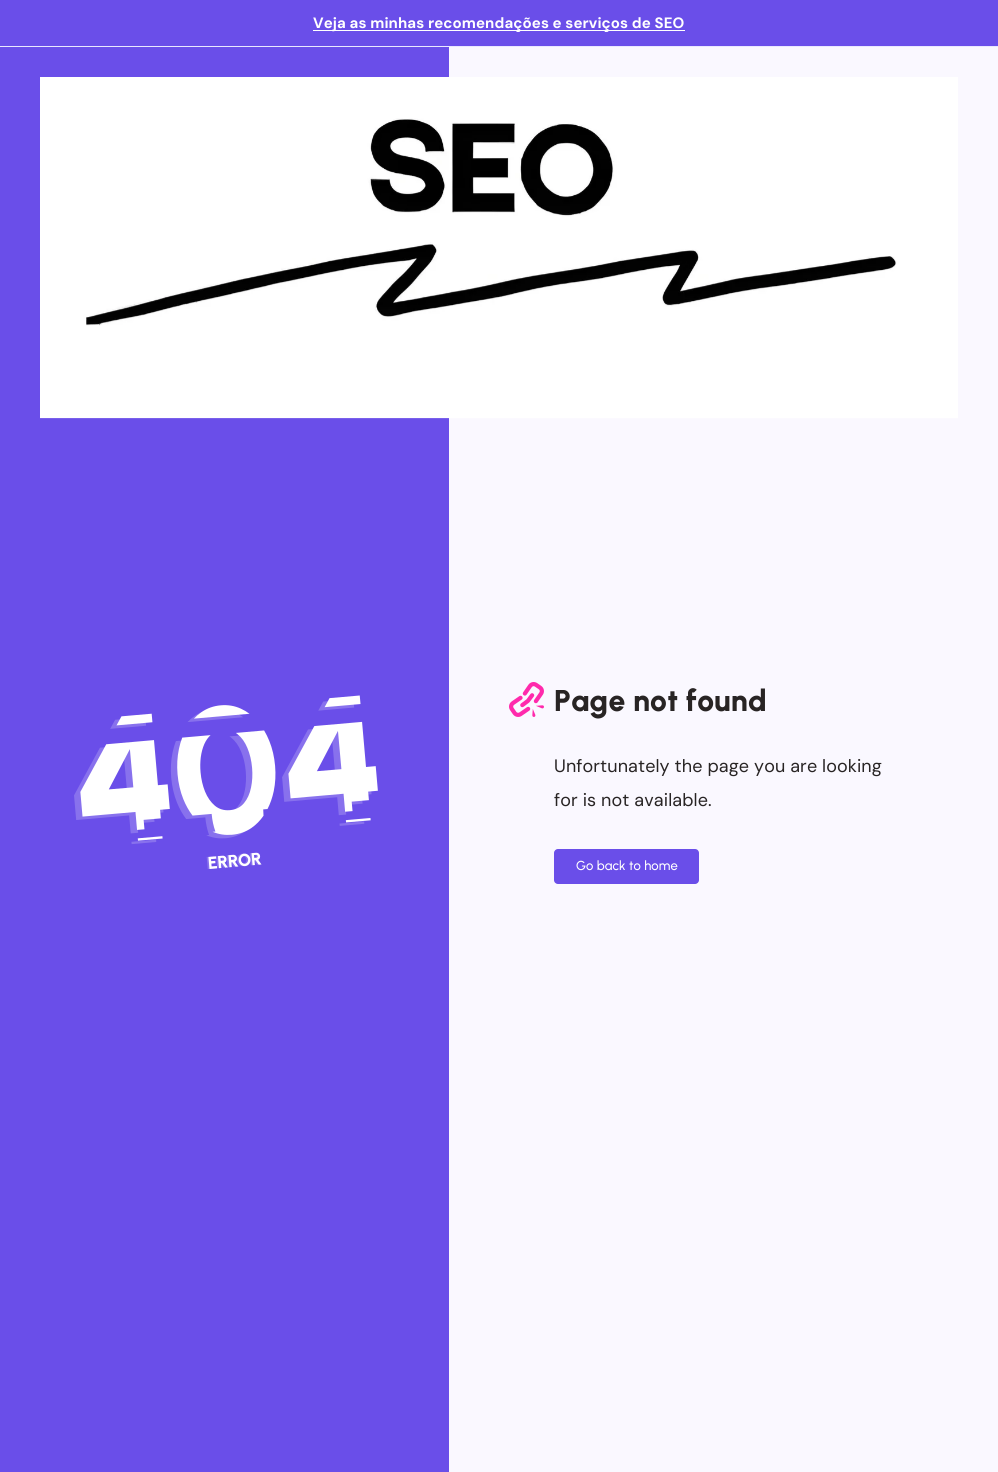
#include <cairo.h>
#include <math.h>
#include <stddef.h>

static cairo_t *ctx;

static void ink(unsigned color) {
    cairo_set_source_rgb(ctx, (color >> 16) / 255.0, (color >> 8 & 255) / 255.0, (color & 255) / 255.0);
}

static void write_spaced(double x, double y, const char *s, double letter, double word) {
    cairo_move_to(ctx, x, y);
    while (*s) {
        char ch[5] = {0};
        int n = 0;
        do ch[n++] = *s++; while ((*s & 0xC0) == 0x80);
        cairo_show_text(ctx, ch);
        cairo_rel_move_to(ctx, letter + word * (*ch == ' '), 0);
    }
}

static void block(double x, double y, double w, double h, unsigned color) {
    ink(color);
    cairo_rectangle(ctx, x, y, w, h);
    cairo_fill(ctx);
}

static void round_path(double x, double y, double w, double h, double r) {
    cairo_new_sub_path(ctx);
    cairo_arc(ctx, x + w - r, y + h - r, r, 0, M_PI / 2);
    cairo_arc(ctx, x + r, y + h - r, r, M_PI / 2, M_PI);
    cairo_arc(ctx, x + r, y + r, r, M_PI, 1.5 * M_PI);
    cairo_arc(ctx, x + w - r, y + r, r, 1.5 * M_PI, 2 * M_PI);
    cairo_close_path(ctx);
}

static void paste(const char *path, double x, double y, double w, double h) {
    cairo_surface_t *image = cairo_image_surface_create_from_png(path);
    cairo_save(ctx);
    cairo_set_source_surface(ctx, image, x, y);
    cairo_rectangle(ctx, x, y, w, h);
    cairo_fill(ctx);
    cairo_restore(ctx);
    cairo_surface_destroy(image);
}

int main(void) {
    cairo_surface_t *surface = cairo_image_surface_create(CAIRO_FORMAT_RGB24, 998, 1472);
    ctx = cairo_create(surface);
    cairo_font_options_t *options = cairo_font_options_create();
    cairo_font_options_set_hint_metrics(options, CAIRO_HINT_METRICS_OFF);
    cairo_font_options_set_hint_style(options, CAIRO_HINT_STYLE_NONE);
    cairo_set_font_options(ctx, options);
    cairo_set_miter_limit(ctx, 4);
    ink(0xfaf8ff);
    cairo_paint(ctx);
    block(0, 0, 998, 46, 0x6a4ee9);
    block(0, 46, 998, 1, 0xe9e8ff);
    block(313, 30, 372, 1, 0xffffff);
    cairo_select_font_face(ctx, "DM Sans", CAIRO_FONT_SLANT_NORMAL, CAIRO_FONT_WEIGHT_BOLD);
    cairo_set_font_size(ctx, 15);
    write_spaced(313, 28, "Veja as minhas recomendações e serviços de SEO", 0.1, 0);
    block(0, 47, 449, 1425, 0x6a4ee9);
    paste("pic1.png", 40, 77, 918, 342);
    paste("pic2.png", 74, 695, 304, 174);
    paste("pic3.png", 509, 682, 35, 35);
    cairo_select_font_face(ctx, "Urbanist ExtraBold", CAIRO_FONT_SLANT_NORMAL, CAIRO_FONT_WEIGHT_NORMAL);
    cairo_set_font_size(ctx, 30);
    ink(0x282424);
    write_spaced(554, 711, "Page not found", 0.25, 0);
    cairo_select_font_face(ctx, "DM Sans", CAIRO_FONT_SLANT_NORMAL, CAIRO_FONT_WEIGHT_NORMAL);
    cairo_set_font_size(ctx, 18);
    write_spaced(554, 772, "Unfortunately the page you are looking", 0.1, 0);
    write_spaced(554, 806, "for is not available.", 0.1, 0);
    ink(0x6a4ee9);
    round_path(554, 849, 145, 35, 4);
    cairo_fill(ctx);
    cairo_select_font_face(ctx, "Urbanist Medium", CAIRO_FONT_SLANT_NORMAL, CAIRO_FONT_WEIGHT_NORMAL);
    cairo_set_font_size(ctx, 13);
    ink(0xffffff);
    write_spaced(576, 870, "Go back to home", 0.1, 0);
    cairo_surface_write_to_png(surface, "screenshot.png");
    cairo_font_options_destroy(options);
    cairo_destroy(ctx);
    cairo_surface_destroy(surface);
    return 0;
}
